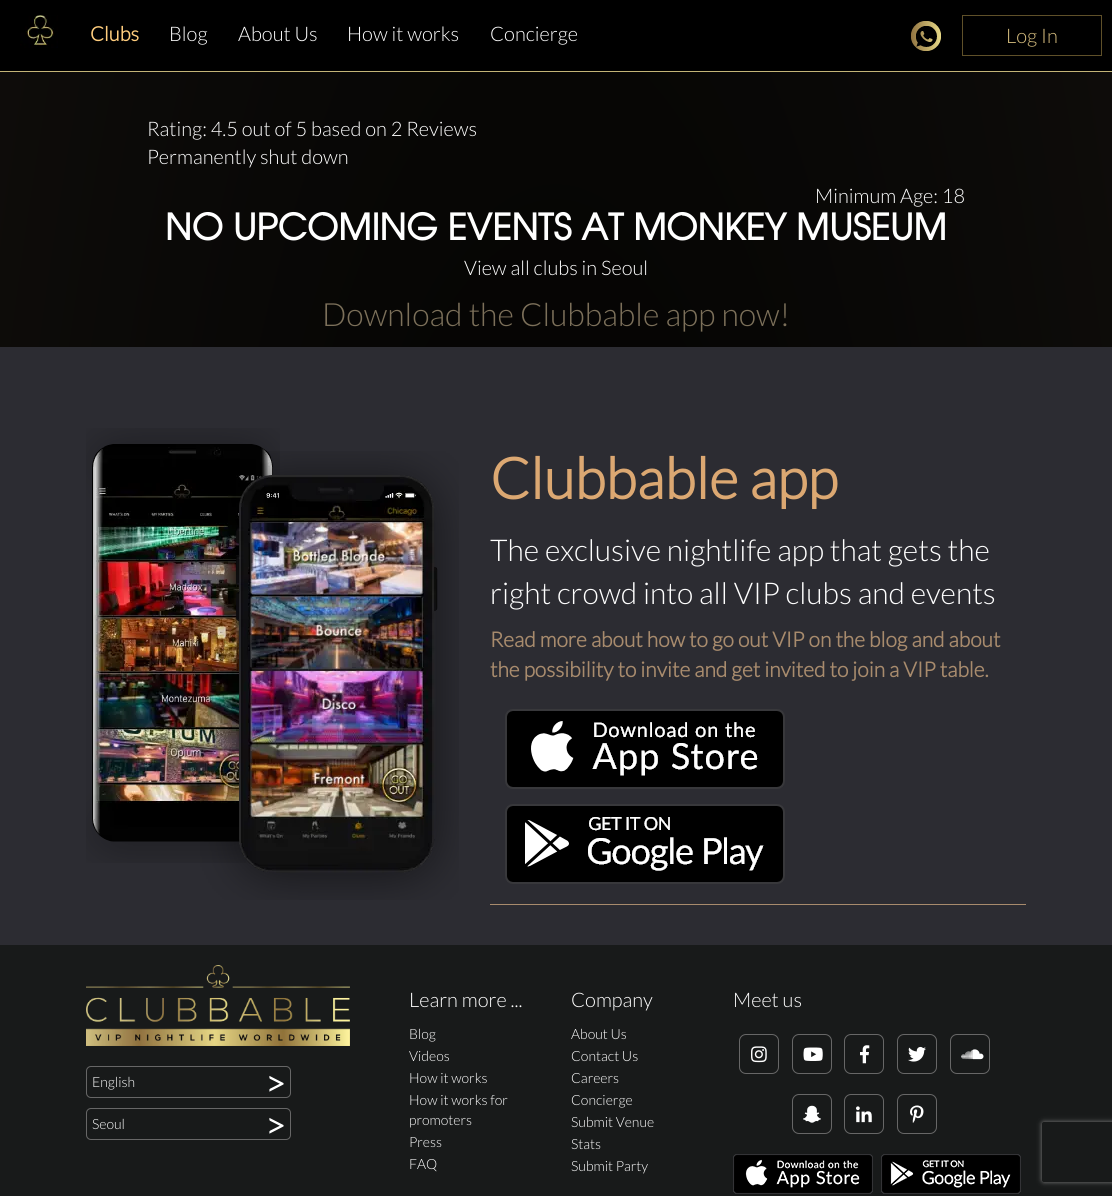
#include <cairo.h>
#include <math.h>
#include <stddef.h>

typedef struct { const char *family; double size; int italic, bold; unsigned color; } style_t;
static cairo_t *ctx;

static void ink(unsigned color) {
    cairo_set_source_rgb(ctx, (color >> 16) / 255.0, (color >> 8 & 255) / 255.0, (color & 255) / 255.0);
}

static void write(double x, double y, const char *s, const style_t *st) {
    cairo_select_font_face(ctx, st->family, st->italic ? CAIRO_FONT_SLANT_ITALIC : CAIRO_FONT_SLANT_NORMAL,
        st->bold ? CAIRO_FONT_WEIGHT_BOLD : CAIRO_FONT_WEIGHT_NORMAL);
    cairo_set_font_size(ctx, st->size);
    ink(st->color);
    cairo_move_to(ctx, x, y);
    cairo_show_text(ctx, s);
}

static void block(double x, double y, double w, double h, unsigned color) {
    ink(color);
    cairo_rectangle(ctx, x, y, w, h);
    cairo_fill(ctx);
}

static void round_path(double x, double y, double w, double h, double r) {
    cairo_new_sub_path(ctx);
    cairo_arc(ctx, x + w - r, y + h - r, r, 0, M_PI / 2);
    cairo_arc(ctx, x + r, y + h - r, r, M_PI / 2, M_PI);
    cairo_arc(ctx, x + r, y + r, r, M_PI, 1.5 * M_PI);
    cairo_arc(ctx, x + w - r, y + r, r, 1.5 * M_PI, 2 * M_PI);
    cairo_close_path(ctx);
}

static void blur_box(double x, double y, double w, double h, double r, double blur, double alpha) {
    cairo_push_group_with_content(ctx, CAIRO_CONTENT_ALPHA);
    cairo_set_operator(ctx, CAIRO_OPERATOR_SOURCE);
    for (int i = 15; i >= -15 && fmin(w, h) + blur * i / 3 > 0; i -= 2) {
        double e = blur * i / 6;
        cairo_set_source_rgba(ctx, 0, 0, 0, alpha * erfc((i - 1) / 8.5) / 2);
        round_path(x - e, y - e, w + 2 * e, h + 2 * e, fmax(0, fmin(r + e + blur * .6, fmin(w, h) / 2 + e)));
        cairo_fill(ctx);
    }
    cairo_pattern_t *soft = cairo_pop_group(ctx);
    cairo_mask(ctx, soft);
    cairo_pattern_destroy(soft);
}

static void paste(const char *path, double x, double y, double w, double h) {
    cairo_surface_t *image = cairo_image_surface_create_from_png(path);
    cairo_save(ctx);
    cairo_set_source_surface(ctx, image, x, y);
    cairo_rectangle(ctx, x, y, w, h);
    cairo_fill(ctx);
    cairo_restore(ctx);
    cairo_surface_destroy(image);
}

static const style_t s1 = {"Lato", 20, 0, 1, 0xffcd7d};
static const style_t s2 = {"Lato Light", 20, 0, 0, 0xffffff};
static const style_t s3 = {"Lato Light", 20, 0, 0, 0xd9c080};
static const style_t s4 = {"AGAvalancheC", 36, 0, 1, 0xffffff};
static const style_t s5 = {"Lato Light", 32, 0, 0, 0x7c705a};
static const style_t s6 = {"Lato", 57, 0, 1, 0xdca872};
static const style_t s7 = {"Lato Light", 30, 0, 0, 0xffffff};
static const style_t s8 = {"Lato", 21, 0, 1, 0xa88b6d};
static const style_t s9 = {"Lato Light", 14, 0, 0, 0xffffff};
static const style_t s10 = {"Lato", 35, 0, 1, 0xffffff};

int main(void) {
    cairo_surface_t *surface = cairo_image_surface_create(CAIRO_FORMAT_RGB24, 1112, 1196);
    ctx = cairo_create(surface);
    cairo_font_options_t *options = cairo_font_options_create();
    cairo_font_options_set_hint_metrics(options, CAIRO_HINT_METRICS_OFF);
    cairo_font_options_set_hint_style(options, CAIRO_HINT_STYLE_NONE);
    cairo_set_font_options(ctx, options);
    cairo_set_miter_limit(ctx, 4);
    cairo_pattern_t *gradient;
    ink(0xffffff);
    cairo_paint(ctx);
    gradient = cairo_pattern_create_radial(0, 0, 0, 0, 0, 1);
    cairo_pattern_set_matrix(gradient, &(cairo_matrix_t){1.0 / 786, 0, 0, 1.0 / 3015, -1.0 * 556 / 786, -1.0 * 1331 / 3015});
    cairo_pattern_add_color_stop_rgba(gradient, 0, 0, 0, 0, 1);
    cairo_pattern_add_color_stop_rgba(gradient, 1, 0.067, 0.059, 0.047, 1);
    cairo_set_source(ctx, gradient);
    cairo_pattern_destroy(gradient);
    cairo_rectangle(ctx, 0, 72, 1112, 275);
    cairo_fill(ctx);
    block(0, 0, 1112, 71, 0x000000);
    block(0, 71, 1112, 1, 0xc3b477);
    paste("pic1.png", 20, 15, 38, 33);
    write(90, 41, "Clubs", &s1);
    write(169, 41, "Blog", &s2);
    write(238, 41, "About Us", &s2);
    write(347, 41, "How it works", &s2);
    write(490, 41, "Concierge", &s2);
    paste("pic2.png", 911, 21, 30, 30);
    cairo_rectangle(ctx, 962.5, 15.5, 139, 40);
    ink(0x5f5029);
    cairo_set_line_width(ctx, 1);
    cairo_stroke(ctx);
    write(1006, 43, "Log In", &s3);
    write(147, 136, "Rating: 4.5 out of 5 based on 2 Reviews", &s2);
    write(147, 164, "Permanently shut down", &s2);
    write(815, 203, "Minimum Age: 18", &s2);
    write(165, 240, "NO UPCOMING EVENTS AT MONKEY MUSEUM", &s4);
    write(464, 275, "View all clubs in Seoul", &s2);
    write(322, 326, "Download the Clubbable app now!", &s5);
    block(0, 347, 1112, 598, 0x2c2c32);
    paste("pic3.png", 86, 428, 194, 435);
    paste("pic4.png", 200, 451, 259, 449);
    write(490, 499, "Clubbable app", &s6);
    write(490, 561, "The exclusive nightlife app that gets the", &s7);
    write(490, 604, "right crowd into all VIP clubs and events", &s7);
    write(490, 647, "Read more about how to go out VIP on the blog and about", &s8);
    write(490, 677, "the possibility to invite and get invited to join a VIP table.", &s8);
    block(490, 904, 536, 1, 0xa88b6d);
    paste("pic5.png", 505, 709, 280, 80);
    paste("pic6.png", 505, 804, 280, 80);
    block(0, 945, 1112, 251, 0x181a1a);
    write(409, 1007, "Learn more ...", &s2);
    write(409, 1039, "Blog", &s9);
    write(409, 1061, "Videos", &s9);
    write(409, 1083, "How it works", &s9);
    write(409, 1105, "How it works for", &s9);
    write(409, 1125, "promoters", &s9);
    write(409, 1147, "Press", &s9);
    write(409, 1169, "FAQ", &s9);
    write(571, 1007, "Company", &s2);
    write(571, 1039, "About Us", &s9);
    write(571, 1061, "Contact Us", &s9);
    write(571, 1083, "Careers", &s9);
    write(571, 1105, "Concierge", &s9);
    write(571, 1127, "Submit Venue", &s9);
    write(571, 1149, "Stats", &s9);
    write(571, 1171, "Submit Party", &s9);
    write(733, 1007, "Meet us", &s2);
    round_path(739.5, 1034.5, 39, 39, 6.5);
    ink(0x676767);
    cairo_stroke(ctx);
    paste("pic7.png", 751, 1046, 16, 17);
    round_path(792.5, 1034.5, 39, 39, 6.5);
    cairo_stroke(ctx);
    paste("pic8.png", 803, 1047, 20, 14);
    round_path(844.5, 1034.5, 39, 39, 6.5);
    cairo_stroke(ctx);
    paste("pic9.png", 860, 1045, 10, 19);
    round_path(897.5, 1034.5, 39, 39, 6.5);
    cairo_stroke(ctx);
    paste("pic10.png", 908, 1046, 18, 16);
    round_path(950.5, 1034.5, 39, 39, 6.5);
    cairo_stroke(ctx);
    paste("pic11.png", 961, 1049, 23, 11);
    round_path(792.5, 1094.5, 39, 39, 6.5);
    cairo_stroke(ctx);
    paste("pic12.png", 803, 1105, 18, 18);
    round_path(844.5, 1094.5, 39, 39, 6.5);
    cairo_stroke(ctx);
    paste("pic13.png", 856, 1106, 16, 17);
    round_path(897.5, 1094.5, 39, 39, 6.5);
    cairo_stroke(ctx);
    paste("pic14.png", 910, 1105, 14, 18);
    paste("pic15.png", 733, 1154, 140, 40);
    paste("pic16.png", 881, 1154, 140, 40);
    paste("pic17.png", 86, 965, 264, 81);
    round_path(86.5, 1066.5, 204, 31, 4.5);
    cairo_stroke(ctx);
    write(92, 1087, "English", &s9);
    write(265, 1096, ">", &s10);
    round_path(86.5, 1108.5, 204, 31, 4.5);
    ink(0x676767);
    cairo_stroke(ctx);
    write(92, 1129, "Seoul", &s9);
    write(265, 1138, ">", &s10);
    cairo_save(ctx);
    cairo_set_fill_rule(ctx, CAIRO_FILL_RULE_EVEN_ODD);
    cairo_new_path(ctx);
    cairo_move_to(ctx, 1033, 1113);
    cairo_line_to(ctx, 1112, 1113);
    cairo_line_to(ctx, 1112, 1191);
    cairo_line_to(ctx, 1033, 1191);
    cairo_close_path(ctx);
    cairo_move_to(ctx, 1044, 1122);
    cairo_line_to(ctx, 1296, 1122);
    cairo_curve_to(ctx, 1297, 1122, 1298, 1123, 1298, 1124);
    cairo_line_to(ctx, 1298, 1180);
    cairo_curve_to(ctx, 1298, 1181, 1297, 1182, 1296, 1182);
    cairo_line_to(ctx, 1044, 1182);
    cairo_curve_to(ctx, 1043, 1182, 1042, 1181, 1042, 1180);
    cairo_line_to(ctx, 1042, 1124);
    cairo_curve_to(ctx, 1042, 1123, 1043, 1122, 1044, 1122);
    cairo_close_path(ctx);
    cairo_clip(ctx);
    ink(0x808080);
    blur_box(1042, 1122, 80, 60, 2, 2.5, 1);
    cairo_restore(ctx);
    cairo_surface_write_to_png(surface, "screenshot.png");
    cairo_font_options_destroy(options);
    cairo_destroy(ctx);
    cairo_surface_destroy(surface);
    return 0;
}
